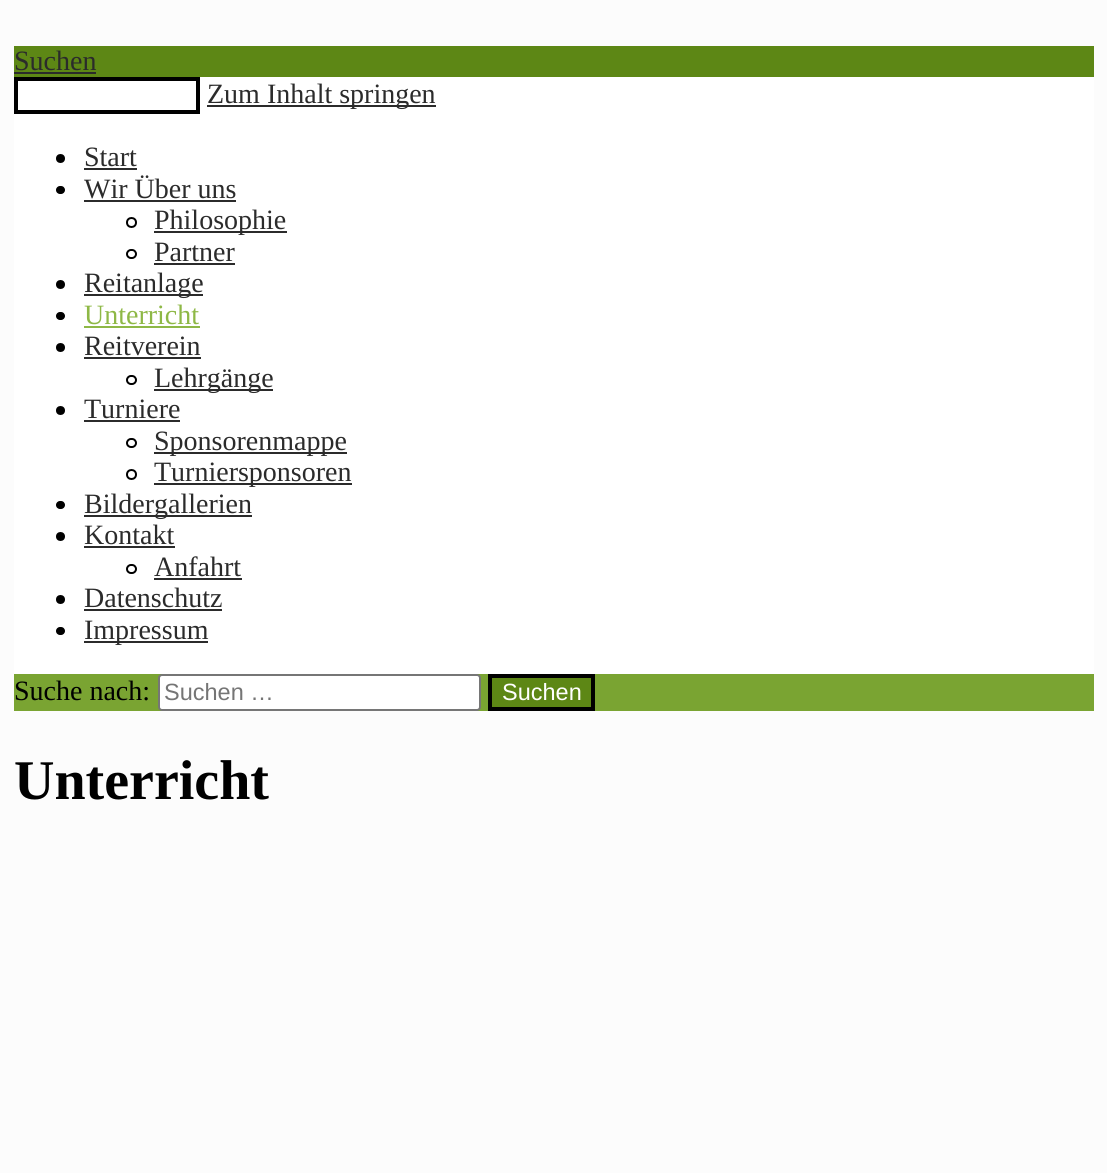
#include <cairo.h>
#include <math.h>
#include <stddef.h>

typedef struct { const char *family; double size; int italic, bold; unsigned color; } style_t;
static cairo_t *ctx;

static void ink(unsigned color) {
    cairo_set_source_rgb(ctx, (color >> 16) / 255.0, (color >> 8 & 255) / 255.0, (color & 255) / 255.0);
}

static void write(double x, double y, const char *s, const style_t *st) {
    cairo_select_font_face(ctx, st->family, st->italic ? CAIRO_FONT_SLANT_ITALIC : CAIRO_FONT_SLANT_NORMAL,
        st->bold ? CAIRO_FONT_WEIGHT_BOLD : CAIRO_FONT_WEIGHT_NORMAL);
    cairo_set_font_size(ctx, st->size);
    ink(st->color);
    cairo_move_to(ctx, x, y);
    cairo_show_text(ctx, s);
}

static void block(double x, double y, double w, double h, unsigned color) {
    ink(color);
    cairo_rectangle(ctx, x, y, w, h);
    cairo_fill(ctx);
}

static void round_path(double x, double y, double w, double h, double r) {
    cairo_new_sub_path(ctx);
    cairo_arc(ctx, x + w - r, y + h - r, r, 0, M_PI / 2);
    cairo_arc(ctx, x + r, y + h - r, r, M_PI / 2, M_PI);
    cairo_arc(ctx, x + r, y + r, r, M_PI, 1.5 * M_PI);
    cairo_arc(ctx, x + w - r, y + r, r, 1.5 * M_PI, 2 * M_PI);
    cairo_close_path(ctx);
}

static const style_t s1 = {"Liberation Serif", 28, 0, 0, 0x2b2b2b};
static const style_t s2 = {"Liberation Serif", 28, 0, 0, 0x8eb846};
static const style_t s3 = {"Liberation Serif", 28, 0, 0, 0x000000};
static const style_t s4 = {"Liberation Sans", 23.5, 0, 0, 0x757575};
static const style_t s5 = {"Liberation Sans", 23.5, 0, 0, 0xffffff};
static const style_t s6 = {"Liberation Serif", 56, 0, 1, 0x000000};

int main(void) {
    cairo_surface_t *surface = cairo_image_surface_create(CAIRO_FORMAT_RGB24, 1107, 1173);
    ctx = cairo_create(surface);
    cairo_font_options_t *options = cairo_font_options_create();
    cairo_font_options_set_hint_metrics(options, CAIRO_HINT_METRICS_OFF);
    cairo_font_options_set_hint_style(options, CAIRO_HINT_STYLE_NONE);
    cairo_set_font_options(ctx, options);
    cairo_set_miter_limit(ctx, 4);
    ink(0xfcfcfc);
    cairo_paint(ctx);
    block(14, 77, 1080, 597, 0xffffff);
    block(14, 46, 1080, 31, 0x5d8715);
    write(14, 70, "Suchen", &s1);
    block(14, 72, 82, 2, 0x2b2b2b);
    cairo_rectangle(ctx, 16, 79, 182, 33);
    ink(0x000000);
    cairo_set_line_width(ctx, 4);
    cairo_stroke(ctx);
    block(207, 105, 229, 2, 0x2b2b2b);
    write(207, 103, "Zum Inhalt springen", &s1);
    ink(0x000000);
    cairo_new_path(ctx);
    cairo_arc(ctx, 60.5, 158.5, 4.5, 0, 2 * M_PI);
    cairo_fill(ctx);
    write(84, 166, "Start", &s1);
    block(84, 168, 53, 2, 0x2b2b2b);
    ink(0x000000);
    round_path(56, 186, 9, 8, 4);
    cairo_fill(ctx);
    write(84, 198, "Wir Über uns", &s1);
    block(84, 200, 152, 2, 0x2b2b2b);
    cairo_new_path(ctx);
    cairo_arc(ctx, 131.5, 222.5, 4.5, 0, 2 * M_PI);
    ink(0x000000);
    cairo_set_line_width(ctx, 2);
    cairo_stroke(ctx);
    block(154, 231, 133, 2, 0x2b2b2b);
    write(154, 229, "Philosophie", &s1);
    round_path(127, 250, 9, 8, 4);
    ink(0x000000);
    cairo_stroke(ctx);
    write(154, 261, "Partner", &s1);
    block(154, 263, 81, 2, 0x2b2b2b);
    ink(0x000000);
    cairo_new_path(ctx);
    cairo_arc(ctx, 60.5, 284.5, 4.5, 0, 2 * M_PI);
    cairo_fill(ctx);
    block(84, 294, 119, 2, 0x2b2b2b);
    write(84, 292, "Reitanlage", &s1);
    ink(0x000000);
    round_path(56, 312, 9, 8, 4);
    cairo_fill(ctx);
    write(84, 324, "Unterricht", &s2);
    block(84, 326, 116, 2, 0x8eb846);
    ink(0x000000);
    cairo_new_path(ctx);
    cairo_arc(ctx, 60.5, 347.5, 4.5, 0, 2 * M_PI);
    cairo_fill(ctx);
    write(84, 355, "Reitverein", &s1);
    block(84, 357, 117, 2, 0x2b2b2b);
    round_path(127, 376, 9, 8, 4);
    ink(0x000000);
    cairo_stroke(ctx);
    block(154, 389, 119, 2, 0x2b2b2b);
    write(154, 387, "Lehrgänge", &s1);
    ink(0x000000);
    cairo_new_path(ctx);
    cairo_arc(ctx, 60.5, 410.5, 4.5, 0, 2 * M_PI);
    cairo_fill(ctx);
    write(84, 418, "Turniere", &s1);
    block(84, 420, 96, 2, 0x2b2b2b);
    round_path(127, 439, 9, 8, 4);
    ink(0x000000);
    cairo_stroke(ctx);
    block(154, 452, 193, 2, 0x2b2b2b);
    write(154, 450, "Sponsorenmappe", &s1);
    cairo_new_path(ctx);
    cairo_arc(ctx, 131.5, 474.5, 4.5, 0, 2 * M_PI);
    ink(0x000000);
    cairo_stroke(ctx);
    block(154, 483, 198, 2, 0x2b2b2b);
    write(154, 481, "Turniersponsoren", &s1);
    ink(0x000000);
    round_path(56, 501, 9, 8, 4);
    cairo_fill(ctx);
    block(84, 515, 168, 2, 0x2b2b2b);
    write(84, 513, "Bildergallerien", &s1);
    ink(0x000000);
    cairo_new_path(ctx);
    cairo_arc(ctx, 60.5, 536.5, 4.5, 0, 2 * M_PI);
    cairo_fill(ctx);
    write(84, 544, "Kontakt", &s1);
    block(84, 546, 91, 2, 0x2b2b2b);
    round_path(127, 565, 9, 8, 4);
    ink(0x000000);
    cairo_stroke(ctx);
    write(154, 576, "Anfahrt", &s1);
    block(154, 578, 88, 2, 0x2b2b2b);
    ink(0x000000);
    cairo_new_path(ctx);
    cairo_arc(ctx, 60.5, 599.5, 4.5, 0, 2 * M_PI);
    cairo_fill(ctx);
    write(84, 607, "Datenschutz", &s1);
    block(84, 609, 138, 2, 0x2b2b2b);
    ink(0x000000);
    round_path(56, 627, 9, 8, 4);
    cairo_fill(ctx);
    block(84, 641, 124, 2, 0x2b2b2b);
    write(84, 639, "Impressum", &s1);
    block(14, 674, 1080, 37, 0x7aa432);
    write(14, 700, "Suche nach:", &s3);
    ink(0xffffff);
    round_path(159, 675, 321, 35, 3);
    cairo_fill_preserve(ctx);
    ink(0x767676);
    cairo_stroke(ctx);
    write(164, 700, "Suchen …", &s4);
    ink(0x5d8715);
    cairo_rectangle(ctx, 490, 676, 103, 33);
    cairo_fill_preserve(ctx);
    ink(0x000000);
    cairo_set_line_width(ctx, 4);
    cairo_stroke(ctx);
    write(502, 700, "Suchen", &s5);
    write(14, 799, "Unterricht", &s6);
    cairo_surface_write_to_png(surface, "screenshot.png");
    cairo_font_options_destroy(options);
    cairo_destroy(ctx);
    cairo_surface_destroy(surface);
    return 0;
}
